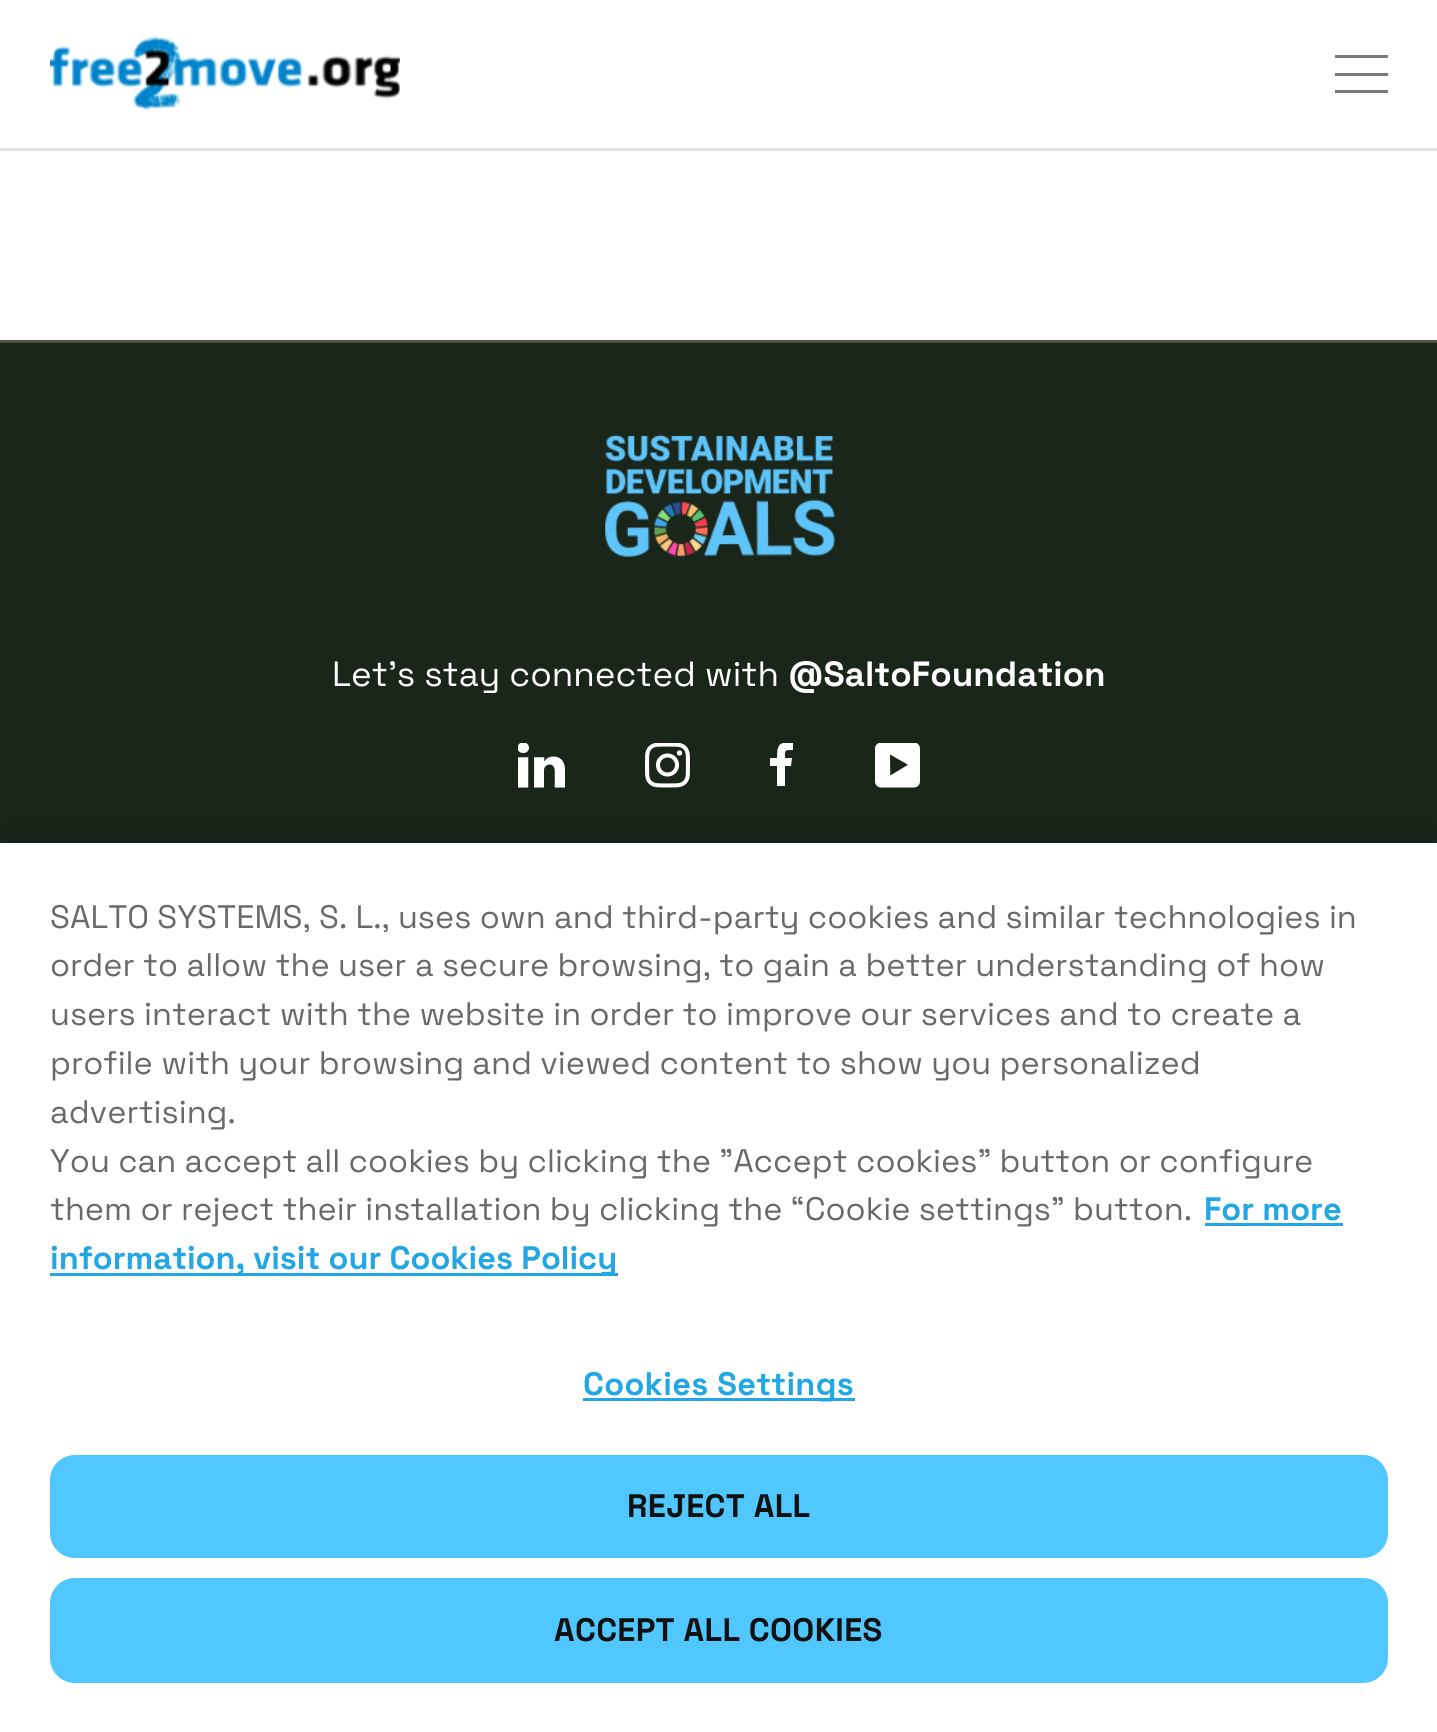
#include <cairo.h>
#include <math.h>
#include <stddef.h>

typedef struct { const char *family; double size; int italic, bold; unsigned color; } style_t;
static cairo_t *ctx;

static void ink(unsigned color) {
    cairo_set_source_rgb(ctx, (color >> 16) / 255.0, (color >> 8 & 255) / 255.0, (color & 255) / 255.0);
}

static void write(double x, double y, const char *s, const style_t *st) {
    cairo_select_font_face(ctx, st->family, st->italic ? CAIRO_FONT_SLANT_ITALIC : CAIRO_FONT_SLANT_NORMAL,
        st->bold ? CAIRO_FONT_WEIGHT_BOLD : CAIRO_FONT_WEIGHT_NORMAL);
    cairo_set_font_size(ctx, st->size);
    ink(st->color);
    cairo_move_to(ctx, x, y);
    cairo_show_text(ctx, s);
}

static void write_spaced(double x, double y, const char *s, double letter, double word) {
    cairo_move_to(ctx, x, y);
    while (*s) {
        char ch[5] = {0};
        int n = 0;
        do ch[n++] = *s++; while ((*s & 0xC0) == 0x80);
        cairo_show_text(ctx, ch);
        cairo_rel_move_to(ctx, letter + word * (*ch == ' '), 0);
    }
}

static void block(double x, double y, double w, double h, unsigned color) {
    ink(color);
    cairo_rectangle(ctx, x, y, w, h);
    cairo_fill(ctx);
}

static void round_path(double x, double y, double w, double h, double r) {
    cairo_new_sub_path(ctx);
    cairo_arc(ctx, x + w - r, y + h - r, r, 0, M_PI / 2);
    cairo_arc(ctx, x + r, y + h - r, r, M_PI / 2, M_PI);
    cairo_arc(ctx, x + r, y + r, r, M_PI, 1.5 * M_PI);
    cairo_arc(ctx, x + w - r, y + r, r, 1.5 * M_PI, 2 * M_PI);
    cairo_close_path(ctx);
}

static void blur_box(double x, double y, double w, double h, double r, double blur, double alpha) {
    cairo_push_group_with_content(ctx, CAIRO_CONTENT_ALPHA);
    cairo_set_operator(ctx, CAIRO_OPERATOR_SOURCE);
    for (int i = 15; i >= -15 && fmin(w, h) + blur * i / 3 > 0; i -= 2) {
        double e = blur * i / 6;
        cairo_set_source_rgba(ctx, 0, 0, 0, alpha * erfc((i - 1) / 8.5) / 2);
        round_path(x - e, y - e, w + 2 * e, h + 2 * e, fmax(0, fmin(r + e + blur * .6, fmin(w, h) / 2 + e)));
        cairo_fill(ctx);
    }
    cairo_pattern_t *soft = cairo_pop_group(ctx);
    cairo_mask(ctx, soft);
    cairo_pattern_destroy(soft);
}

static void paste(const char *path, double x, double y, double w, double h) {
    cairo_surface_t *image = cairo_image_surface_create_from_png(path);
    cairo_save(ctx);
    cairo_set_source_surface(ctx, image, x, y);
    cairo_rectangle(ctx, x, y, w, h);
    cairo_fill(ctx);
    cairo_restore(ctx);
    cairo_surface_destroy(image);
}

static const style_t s1 = {"Space Grotesk", 35, 0, 0, 0xffffff};
static const style_t s2 = {"Space Grotesk", 35, 0, 1, 0xffffff};
static const style_t s3 = {"Space Grotesk", 32.5, 0, 0, 0x696969};
static const style_t s4 = {"Space Grotesk", 32.5, 0, 1, 0x22a7e4};

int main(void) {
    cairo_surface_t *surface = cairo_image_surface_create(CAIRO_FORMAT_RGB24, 1437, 1732);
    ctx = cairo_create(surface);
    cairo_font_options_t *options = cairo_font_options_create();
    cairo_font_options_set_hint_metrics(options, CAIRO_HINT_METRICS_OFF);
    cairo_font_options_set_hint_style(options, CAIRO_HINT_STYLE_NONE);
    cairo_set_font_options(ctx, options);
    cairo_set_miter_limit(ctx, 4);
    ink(0xffffff);
    cairo_paint(ctx);
    block(0, 148, 1437, 3, 0xe1e1e1);
    paste("pic1.png", 50, 36, 350, 74);
    block(1335, 55, 53, 3, 0x797979);
    block(1335, 73, 53, 3, 0x797979);
    block(1335, 90, 53, 3, 0x797979);
    block(0, 343, 1437, 500, 0x1b261b);
    block(0, 340, 1437, 3, 0x495149);
    paste("pic2.png", 605, 434, 231, 123);
    write(332, 686, "Let's stay connected with", &s1);
    write(788, 686, "@SaltoFoundation", &s2);
    paste("pic3.png", 518, 743, 47, 45);
    paste("pic4.png", 645, 743, 45, 45);
    cairo_save(ctx);
    cairo_rectangle(ctx, 770, 743, 25, 45);
    cairo_clip(ctx);
    cairo_new_path(ctx);
    cairo_move_to(ctx, 785, 786);
    cairo_line_to(ctx, 785, 766);
    cairo_line_to(ctx, 791, 766);
    cairo_line_to(ctx, 792, 758);
    cairo_line_to(ctx, 785, 758);
    cairo_curve_to(ctx, 785, 750, 784, 750, 793, 750);
    cairo_line_to(ctx, 793, 743);
    cairo_curve_to(ctx, 779, 741, 777, 745, 777, 758);
    cairo_line_to(ctx, 770, 758);
    cairo_line_to(ctx, 770, 766);
    cairo_line_to(ctx, 777, 766);
    cairo_line_to(ctx, 777, 786);
    cairo_close_path(ctx);
    cairo_fill(ctx);
    cairo_restore(ctx);
    paste("pic5.png", 875, 743, 45, 45);
    ink(0x000000);
    blur_box(0, 843, 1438, 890, 0, 22.5, 0.2);
    block(0, 843, 1437, 889, 0xffffff);
    write(50, 928, "SALTO SYSTEMS, S. L., uses own and third-party cookies and similar technologies in", &s3);
    write(50, 976, "order to allow the user a secure browsing, to gain a better understanding of how", &s3);
    write(50, 1025, "users interact with the website in order to improve our services and to create a", &s3);
    write(50, 1074, "profile with your browsing and viewed content to show you personalized", &s3);
    write(50, 1123, "advertising.", &s3);
    write(50, 1172, "You can accept all cookies by clicking the \"Accept cookies\" button or configure", &s3);
    write(50, 1220, "them or reject their installation by clicking the “Cookie settings” button.", &s3);
    write(1204, 1220, "For more", &s4);
    block(1205, 1223, 138, 3, 0x22a7e4);
    block(50, 1273, 568, 3, 0x22a7e4);
    write(50, 1269, "information, visit our Cookies Policy", &s4);
    block(583, 1398, 272, 3, 0x22a7e4);
    write_spaced(583, 1395, "Cookies Settings", 0.3, 0);
    ink(0x50c8ff);
    round_path(51.5, 1456.5, 1335, 100, 23.5);
    cairo_fill_preserve(ctx);
    cairo_set_line_width(ctx, 3);
    cairo_stroke(ctx);
    ink(0x111111);
    write_spaced(627, 1517, "REJECT ALL", 0.3, 0);
    ink(0x50c8ff);
    round_path(51.5, 1579.5, 1335, 102, 23.5);
    cairo_fill_preserve(ctx);
    cairo_stroke(ctx);
    ink(0x111111);
    write_spaced(554, 1641, "ACCEPT ALL COOKIES", 0.3, 0);
    cairo_surface_write_to_png(surface, "screenshot.png");
    cairo_font_options_destroy(options);
    cairo_destroy(ctx);
    cairo_surface_destroy(surface);
    return 0;
}
